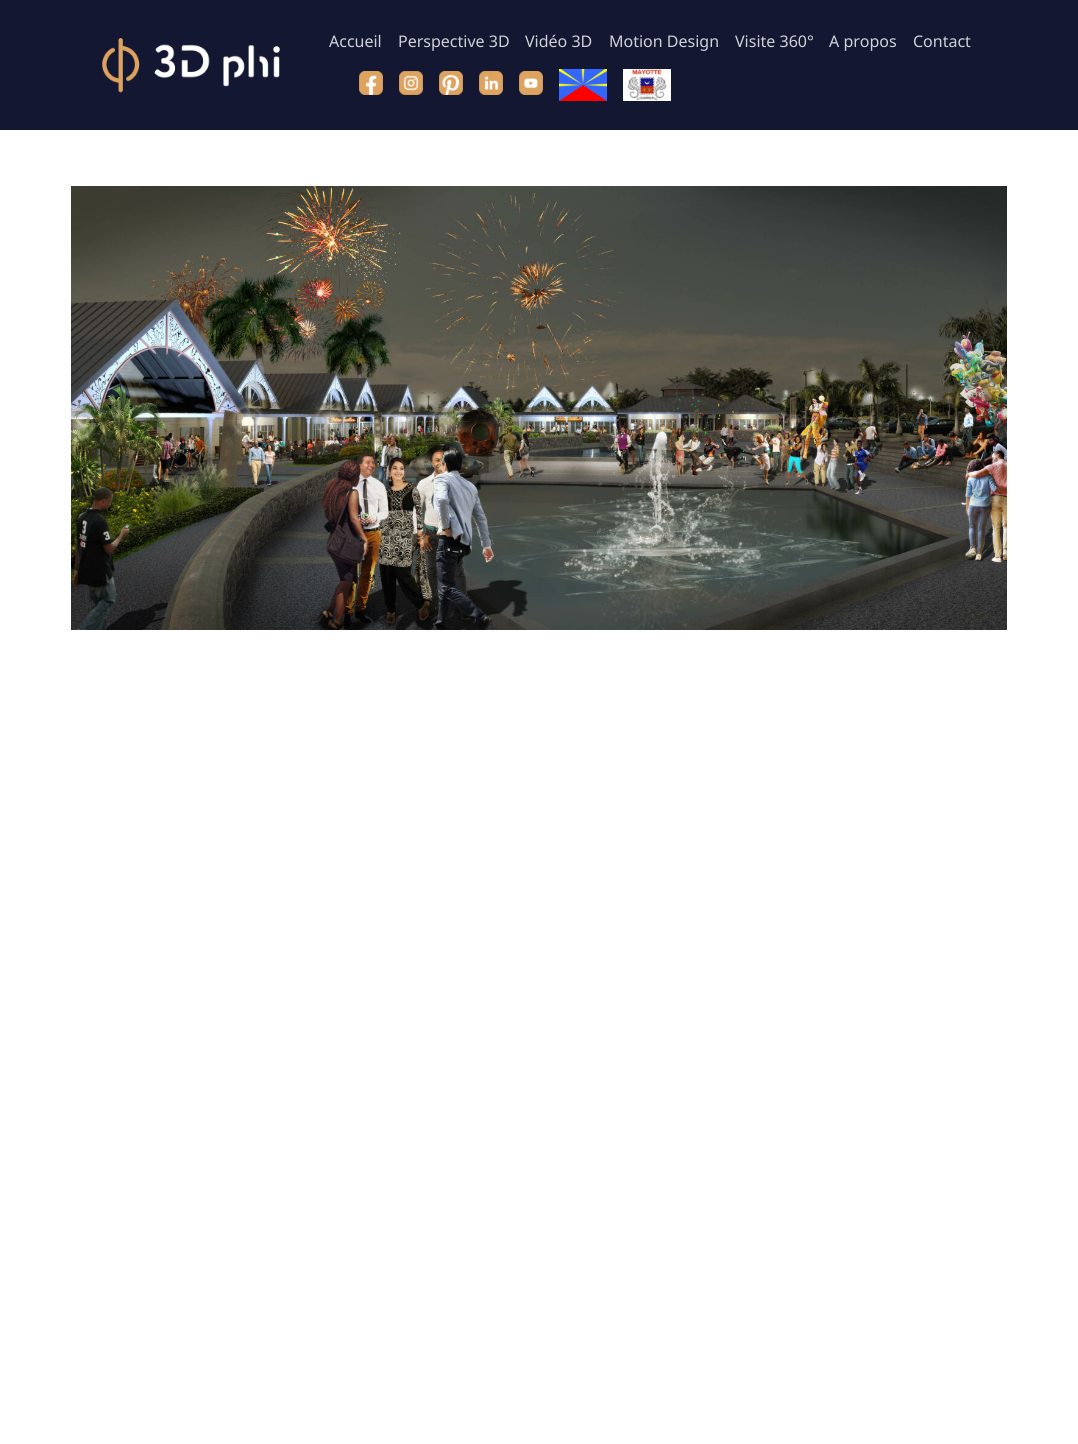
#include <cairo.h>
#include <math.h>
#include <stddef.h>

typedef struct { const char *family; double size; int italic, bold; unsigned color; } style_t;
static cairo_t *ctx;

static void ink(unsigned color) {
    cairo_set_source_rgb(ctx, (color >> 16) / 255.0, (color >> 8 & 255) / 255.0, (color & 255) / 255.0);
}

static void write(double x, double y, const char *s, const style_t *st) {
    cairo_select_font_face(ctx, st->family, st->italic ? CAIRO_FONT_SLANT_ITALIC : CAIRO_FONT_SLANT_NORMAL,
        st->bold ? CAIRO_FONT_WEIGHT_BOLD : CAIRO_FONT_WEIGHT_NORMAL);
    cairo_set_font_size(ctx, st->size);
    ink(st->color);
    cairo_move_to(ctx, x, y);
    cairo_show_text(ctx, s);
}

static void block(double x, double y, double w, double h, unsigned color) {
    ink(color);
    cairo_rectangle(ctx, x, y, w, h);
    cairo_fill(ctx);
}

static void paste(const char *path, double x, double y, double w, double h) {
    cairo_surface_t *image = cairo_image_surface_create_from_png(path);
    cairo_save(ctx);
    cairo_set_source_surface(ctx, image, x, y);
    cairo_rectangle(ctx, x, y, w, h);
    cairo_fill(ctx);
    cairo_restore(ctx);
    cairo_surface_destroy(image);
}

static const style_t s1 = {"Noto Sans", 16, 0, 0, 0xd0d1d6};

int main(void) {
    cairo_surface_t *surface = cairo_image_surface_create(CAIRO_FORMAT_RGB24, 1078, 1444);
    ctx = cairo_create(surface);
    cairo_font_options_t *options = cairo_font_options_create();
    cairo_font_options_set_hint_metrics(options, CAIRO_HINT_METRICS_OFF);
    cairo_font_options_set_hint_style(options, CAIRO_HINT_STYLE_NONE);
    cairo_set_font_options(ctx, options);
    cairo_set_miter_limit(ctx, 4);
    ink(0xffffff);
    cairo_paint(ctx);
    block(0, 0, 1078, 130, 0x131731);
    paste("pic1.png", 102, 38, 178, 55);
    write(329, 47, "Accueil", &s1);
    write(398, 47, "Perspective 3D", &s1);
    write(525, 47, "Vidéo 3D", &s1);
    write(609, 47, "Motion Design", &s1);
    write(735, 47, "Visite 360°", &s1);
    write(829, 47, "A propos", &s1);
    write(913, 47, "Contact", &s1);
    paste("pic2.png", 359, 71, 24, 24);
    paste("pic3.png", 399, 71, 24, 24);
    paste("pic4.png", 439, 71, 24, 24);
    paste("pic5.png", 479, 71, 24, 24);
    paste("pic6.png", 519, 71, 24, 24);
    paste("pic7.png", 559, 69, 48, 32);
    paste("pic8.png", 623, 69, 48, 32);
    paste("pic9.png", 71, 186, 936, 444);
    cairo_surface_write_to_png(surface, "screenshot.png");
    cairo_font_options_destroy(options);
    cairo_destroy(ctx);
    cairo_surface_destroy(surface);
    return 0;
}
